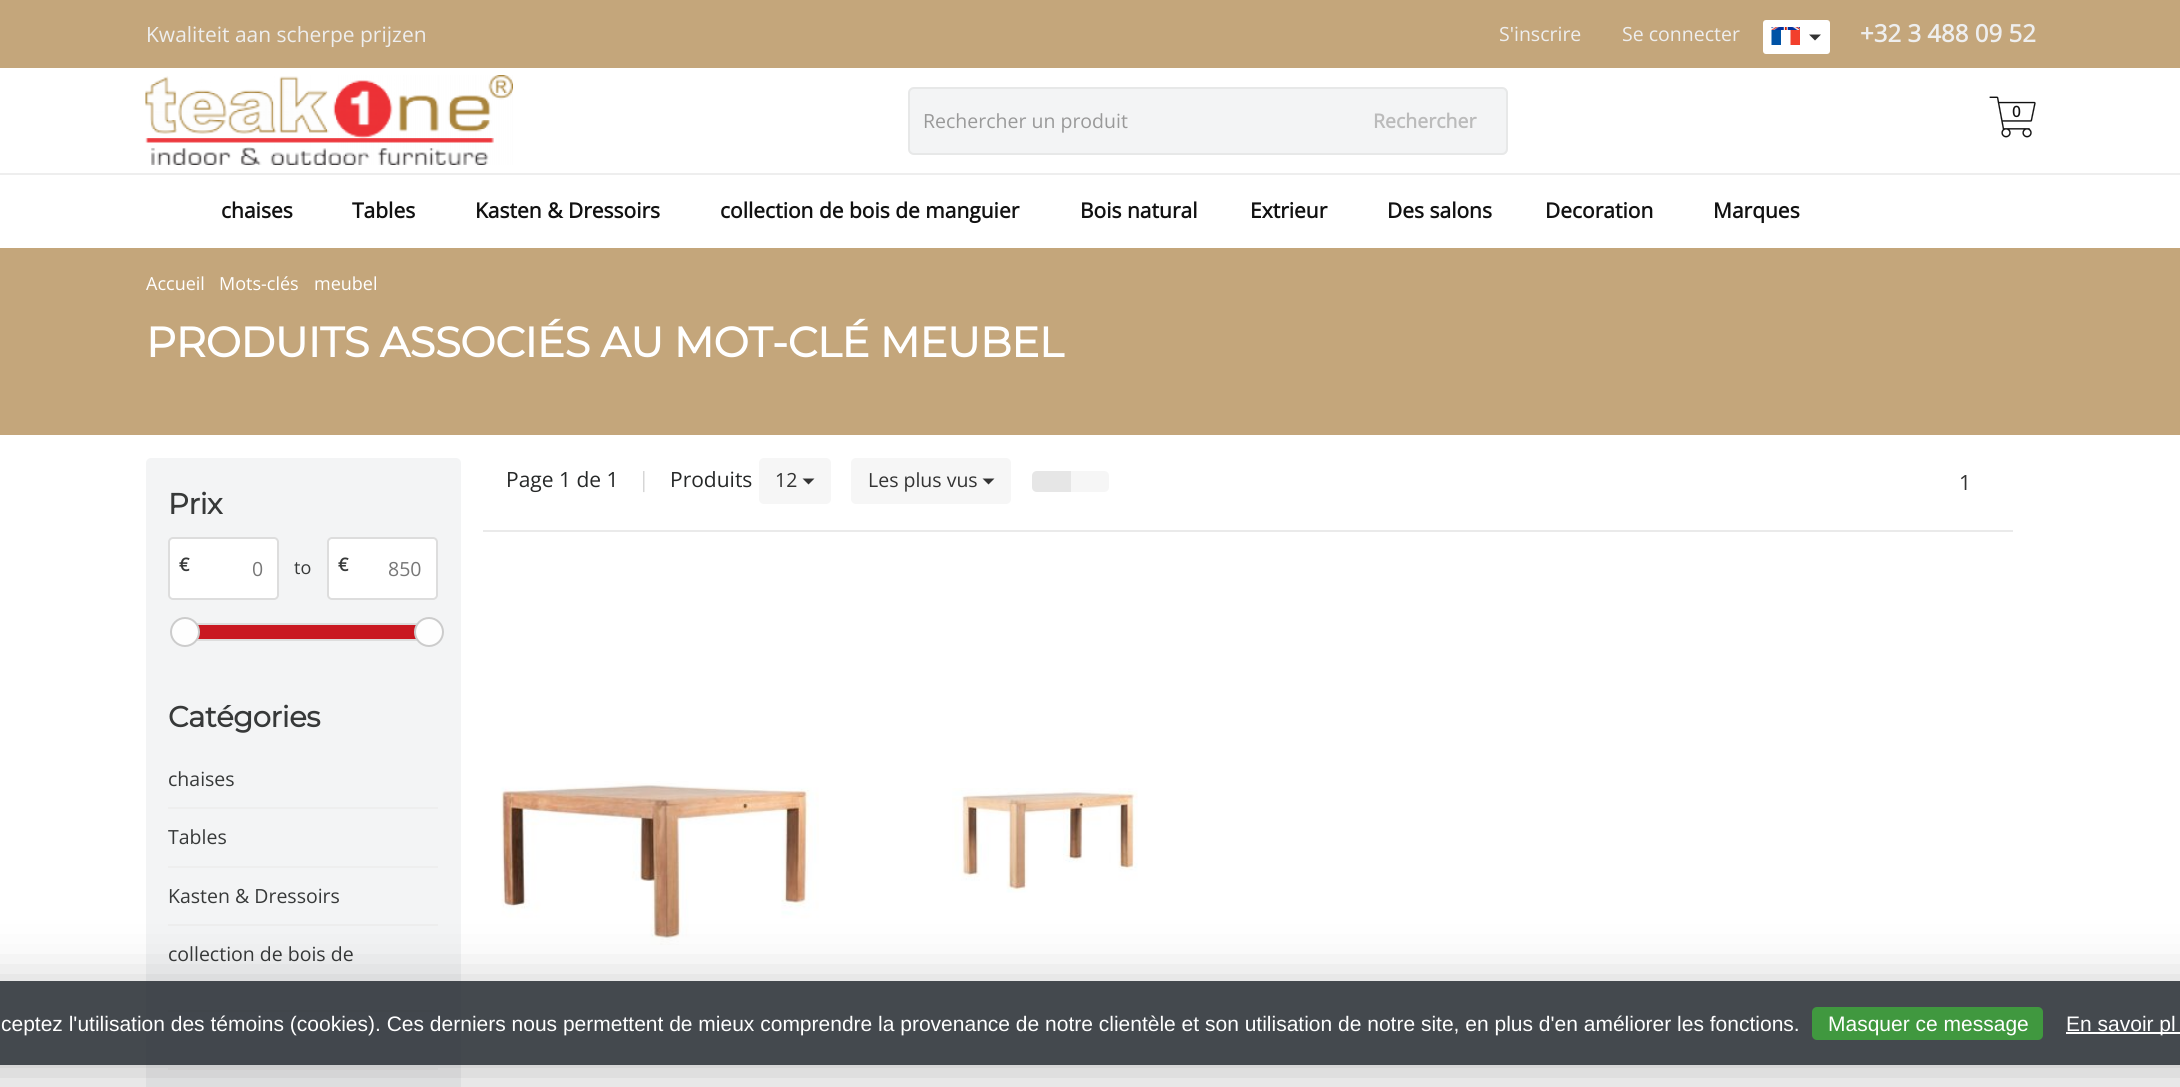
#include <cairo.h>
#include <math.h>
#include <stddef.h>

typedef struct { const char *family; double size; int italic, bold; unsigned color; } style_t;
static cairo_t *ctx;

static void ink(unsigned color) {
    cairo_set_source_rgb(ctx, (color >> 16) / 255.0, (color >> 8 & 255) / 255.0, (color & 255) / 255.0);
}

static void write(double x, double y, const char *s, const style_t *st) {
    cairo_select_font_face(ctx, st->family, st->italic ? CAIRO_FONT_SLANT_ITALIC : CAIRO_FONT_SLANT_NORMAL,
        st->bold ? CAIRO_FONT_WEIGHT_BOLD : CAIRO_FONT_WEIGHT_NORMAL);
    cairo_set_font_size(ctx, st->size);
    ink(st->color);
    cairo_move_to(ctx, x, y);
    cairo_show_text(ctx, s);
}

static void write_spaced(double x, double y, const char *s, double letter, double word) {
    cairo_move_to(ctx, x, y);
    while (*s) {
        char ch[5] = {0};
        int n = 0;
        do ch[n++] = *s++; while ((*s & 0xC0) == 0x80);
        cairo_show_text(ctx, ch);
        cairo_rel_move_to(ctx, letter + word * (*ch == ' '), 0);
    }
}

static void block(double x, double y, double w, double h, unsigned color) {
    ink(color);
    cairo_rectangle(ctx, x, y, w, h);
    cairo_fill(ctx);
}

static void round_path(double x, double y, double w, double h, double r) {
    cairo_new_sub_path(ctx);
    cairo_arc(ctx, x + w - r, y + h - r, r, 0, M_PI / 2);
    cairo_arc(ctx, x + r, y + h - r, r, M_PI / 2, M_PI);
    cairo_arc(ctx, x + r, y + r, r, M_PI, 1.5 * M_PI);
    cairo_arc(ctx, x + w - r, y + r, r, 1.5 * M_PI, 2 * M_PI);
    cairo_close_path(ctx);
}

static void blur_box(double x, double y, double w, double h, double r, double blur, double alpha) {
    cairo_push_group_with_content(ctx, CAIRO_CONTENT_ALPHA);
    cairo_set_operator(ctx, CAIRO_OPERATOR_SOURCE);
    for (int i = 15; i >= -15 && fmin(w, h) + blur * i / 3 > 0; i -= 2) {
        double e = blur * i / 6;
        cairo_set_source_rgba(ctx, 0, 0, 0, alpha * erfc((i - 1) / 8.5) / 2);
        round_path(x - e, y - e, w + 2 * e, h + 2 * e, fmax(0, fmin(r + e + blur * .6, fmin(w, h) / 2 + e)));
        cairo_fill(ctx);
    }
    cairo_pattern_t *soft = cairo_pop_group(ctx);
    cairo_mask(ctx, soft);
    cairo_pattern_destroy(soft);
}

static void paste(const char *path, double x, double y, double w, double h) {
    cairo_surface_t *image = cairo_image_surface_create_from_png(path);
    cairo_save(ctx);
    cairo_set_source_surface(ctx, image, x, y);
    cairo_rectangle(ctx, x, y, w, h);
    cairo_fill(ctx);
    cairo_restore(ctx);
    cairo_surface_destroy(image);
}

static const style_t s1 = {"Open Sans", 21, 0, 0, 0xeeeeee};
static const style_t s2 = {"Open Sans", 19.5, 0, 0, 0xeeeeee};
static const style_t s3 = {"Open Sans", 24, 0, 1, 0xeeeeee};
static const style_t s4 = {"Open Sans", 19.5, 0, 0, 0x999999};
static const style_t s5 = {"Open Sans", 19.5, 0, 1, 0xbbbbbb};
static const style_t s6 = {"Open Sans", 15, 0, 1, 0x111111};
static const style_t s7 = {"Open Sans", 21, 0, 1, 0x111111};
static const style_t s8 = {"Open Sans", 18, 0, 0, 0xffffff};
static const style_t s9 = {"Open Sans", 21, 0, 0, 0x262828};
static const style_t s10 = {"Open Sans", 21, 0, 0, 0xd4d4d4};
static const style_t s11 = {"Open Sans", 19.5, 0, 0, 0x333333};
static const style_t s12 = {"Open Sans", 21, 0, 0, 0x333333};
static const style_t s13 = {"Open Sans", 18, 0, 1, 0x373939};
static const style_t s14 = {"Open Sans", 19.5, 0, 0, 0x777777};
static const style_t s15 = {"Open Sans", 18, 0, 0, 0x373939};
static const style_t s16 = {"Open Sans", 19.5, 0, 0, 0x373939};
static const style_t s17 = {"Liberation Sans", 21, 0, 0, 0xffffff};

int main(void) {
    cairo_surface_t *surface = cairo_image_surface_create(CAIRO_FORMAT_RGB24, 2180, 1087);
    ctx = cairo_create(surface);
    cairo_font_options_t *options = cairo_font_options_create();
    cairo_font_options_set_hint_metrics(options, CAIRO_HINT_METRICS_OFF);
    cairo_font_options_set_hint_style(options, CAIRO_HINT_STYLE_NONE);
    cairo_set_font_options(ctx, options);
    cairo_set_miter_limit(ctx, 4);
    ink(0xffffff);
    cairo_paint(ctx);
    block(0, 0, 2180, 68, 0xc4a67b);
    write(146, 42, "Kwaliteit aan scherpe prijzen", &s1);
    write(1499, 41, "S'inscrire", &s2);
    write(1622, 41, "Se connecter", &s2);
    ink(0xffffff);
    round_path(1764, 21, 65, 32, 2);
    cairo_fill_preserve(ctx);
    cairo_stroke(ctx);
    paste("pic1.png", 1771, 27, 29, 18);
    ink(0x333333);
    cairo_new_path(ctx);
    cairo_move_to(ctx, 1809, 34.5);
    cairo_line_to(ctx, 1821, 34.5);
    cairo_line_to(ctx, 1815, 40.5);
    cairo_close_path(ctx);
    cairo_fill(ctx);
    write(1860, 42, "+32 3 488 09 52", &s3);
    paste("pic2.png", 145, 75, 368, 90);
    ink(0xf3f4f5);
    round_path(908, 87, 600, 68, 6);
    cairo_fill(ctx);
    round_path(909, 88, 598, 66, 5);
    cairo_set_source_rgba(ctx, 0.867, 0.867, 0.867, 0.5);
    cairo_stroke(ctx);
    write(923, 128, "Rechercher un produit", &s4);
    write(1373, 128, "Rechercher", &s5);
    paste("pic3.png", 1989, 96, 47, 42);
    write(2012, 117, "0", &s6);
    write(221, 218, "chaises", &s7);
    write(352, 218, "Tables", &s7);
    write(475, 218, "Kasten & Dressoirs", &s7);
    write(720, 218, "collection de bois de manguier", &s7);
    write(1080, 218, "Bois natural", &s7);
    write(1250, 218, "Extrieur", &s7);
    write(1387, 218, "Des salons", &s7);
    write(1545, 218, "Decoration", &s7);
    write(1713, 218, "Marques", &s7);
    block(0, 173, 2180, 2, 0xeeeeee);
    block(0, 248, 123, 187, 0xc4a67b);
    block(123, 248, 2057, 187, 0xc4a67b);
    write(146, 290, "Accueil", &s8);
    write(219, 290, "Mots-clés", &s8);
    write(314, 290, "meubel", &s8);
    cairo_select_font_face(ctx, "Montserrat", CAIRO_FONT_SLANT_NORMAL, CAIRO_FONT_WEIGHT_BOLD);
    cairo_set_font_size(ctx, 42);
    write_spaced(146, 357, "PRODUITS ASSOCIÉS AU MOT-CLÉ MEUBEL", -0.4, 0);
    write(506, 487, "Page 1 de 1", &s9);
    write(638, 487, "|", &s10);
    write(670, 487, "Produits", &s9);
    ink(0xf6f6f6);
    round_path(759, 458, 72, 46, 5);
    cairo_fill(ctx);
    write(775, 487, "12", &s11);
    cairo_new_path(ctx);
    cairo_move_to(ctx, 802.5, 478.5);
    cairo_line_to(ctx, 814.5, 478.5);
    cairo_line_to(ctx, 808.5, 484.5);
    cairo_close_path(ctx);
    cairo_fill(ctx);
    ink(0xf6f6f6);
    round_path(851, 458, 160, 46, 5);
    cairo_fill(ctx);
    write(868, 487, "Les plus vus", &s11);
    cairo_new_path(ctx);
    cairo_move_to(ctx, 982.5, 478.5);
    cairo_line_to(ctx, 994.5, 478.5);
    cairo_line_to(ctx, 988.5, 484.5);
    cairo_close_path(ctx);
    cairo_fill(ctx);
    ink(0xf6f6f6);
    cairo_new_path(ctx);
    cairo_move_to(ctx, 1070, 471);
    cairo_line_to(ctx, 1104, 471);
    cairo_curve_to(ctx, 1107, 471, 1109, 473, 1109, 476);
    cairo_line_to(ctx, 1109, 487);
    cairo_curve_to(ctx, 1109, 490, 1107, 492, 1104, 492);
    cairo_line_to(ctx, 1070, 492);
    cairo_close_path(ctx);
    cairo_fill(ctx);
    ink(0xe6e6e6);
    cairo_new_path(ctx);
    cairo_move_to(ctx, 1037, 471);
    cairo_line_to(ctx, 1071, 471);
    cairo_line_to(ctx, 1071, 492);
    cairo_line_to(ctx, 1037, 492);
    cairo_curve_to(ctx, 1034, 492, 1032, 490, 1032, 487);
    cairo_line_to(ctx, 1032, 476);
    cairo_curve_to(ctx, 1032, 473, 1034, 471, 1037, 471);
    cairo_close_path(ctx);
    cairo_fill(ctx);
    write(1959, 490, "1", &s12);
    block(483, 530, 1530, 2, 0xeaeaea);
    paste("pic4.png", 500, 781, 319, 164);
    paste("pic5.png", 952, 788, 186, 105);
    ink(0xf3f4f5);
    round_path(146, 458, 315, 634, 5);
    cairo_fill(ctx);
    cairo_select_font_face(ctx, "Montserrat", CAIRO_FONT_SLANT_NORMAL, CAIRO_FONT_WEIGHT_BOLD);
    cairo_set_font_size(ctx, 29);
    ink(0x373939);
    write_spaced(168, 514, "Prix", -0.4, 0);
    ink(0xffffff);
    round_path(169, 538, 109, 61, 4);
    cairo_fill_preserve(ctx);
    ink(0xdddddd);
    cairo_stroke(ctx);
    write(179, 571, "€", &s13);
    write(252, 576, "0", &s14);
    write(294, 574, "to", &s15);
    ink(0xffffff);
    round_path(328, 538, 109, 61, 4);
    cairo_fill_preserve(ctx);
    ink(0xdddddd);
    cairo_stroke(ctx);
    write(338, 571, "€", &s13);
    write(388, 576, "850", &s14);
    block(198, 625, 218, 14, 0xc91821);
    cairo_rectangle(ctx, 175, 624, 243, 16);
    ink(0xdddddd);
    cairo_stroke(ctx);
    ink(0xfefefe);
    cairo_arc(ctx, 185, 632, 14, 0, 2 * M_PI);
    cairo_fill_preserve(ctx);
    ink(0xcccccc);
    cairo_stroke(ctx);
    ink(0xfefefe);
    cairo_arc(ctx, 429, 632, 14, 0, 2 * M_PI);
    cairo_fill_preserve(ctx);
    ink(0xcccccc);
    cairo_stroke(ctx);
    cairo_select_font_face(ctx, "Montserrat", CAIRO_FONT_SLANT_NORMAL, CAIRO_FONT_WEIGHT_BOLD);
    cairo_set_font_size(ctx, 29);
    ink(0x373939);
    write_spaced(168, 727, "Catégories", -0.4, 0);
    block(168, 807, 270, 2, 0xeeeeee);
    write(168, 786, "chaises", &s16);
    block(168, 866, 270, 2, 0xeeeeee);
    write(168, 844, "Tables", &s16);
    block(168, 924, 270, 2, 0xeeeeee);
    write(168, 903, "Kasten & Dressoirs", &s16);
    block(168, 1010, 270, 2, 0xeeeeee);
    write(168, 961, "collection de bois de", &s16);
    block(168, 1068, 270, 2, 0xeeeeee);
    cairo_save(ctx);
    cairo_set_fill_rule(ctx, CAIRO_FILL_RULE_EVEN_ODD);
    cairo_new_path(ctx);
    cairo_move_to(ctx, 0, 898);
    cairo_line_to(ctx, 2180, 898);
    cairo_line_to(ctx, 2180, 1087);
    cairo_line_to(ctx, 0, 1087);
    cairo_close_path(ctx);
    cairo_move_to(ctx, -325, 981);
    cairo_line_to(ctx, 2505, 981);
    cairo_curve_to(ctx, 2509.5, 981, 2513, 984.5, 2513, 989);
    cairo_line_to(ctx, 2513, 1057);
    cairo_curve_to(ctx, 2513, 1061.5, 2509.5, 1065, 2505, 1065);
    cairo_line_to(ctx, -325, 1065);
    cairo_curve_to(ctx, -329.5, 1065, -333, 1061.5, -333, 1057);
    cairo_line_to(ctx, -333, 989);
    cairo_curve_to(ctx, -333, 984.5, -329.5, 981, -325, 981);
    cairo_close_path(ctx);
    cairo_clip(ctx);
    ink(0x000000);
    blur_box(-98, 989, 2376, 84, 8, 30, 0.25);
    cairo_restore(ctx);
    cairo_set_source_rgba(ctx, 0.141, 0.165, 0.188, 0.85);
    cairo_rectangle(ctx, 0, 981, 2180, 84);
    cairo_fill(ctx);
    write(1, 1031, "ceptez l'utilisation des témoins (cookies). Ces derniers nous permettent de mieux comprendre la provenance de notre clientèle et son utilisation de notre site, en plus d'en améliorer les fonctions.", &s17);
    ink(0x40983f);
    round_path(1812, 1007, 231, 33, 5);
    cairo_fill(ctx);
    write(1828, 1031, "Masquer ce message", &s17);
    block(2066, 1032, 114, 2, 0xffffff);
    write(2066, 1031, "En savoir pl", &s17);
    cairo_surface_write_to_png(surface, "screenshot.png");
    cairo_font_options_destroy(options);
    cairo_destroy(ctx);
    cairo_surface_destroy(surface);
    return 0;
}
